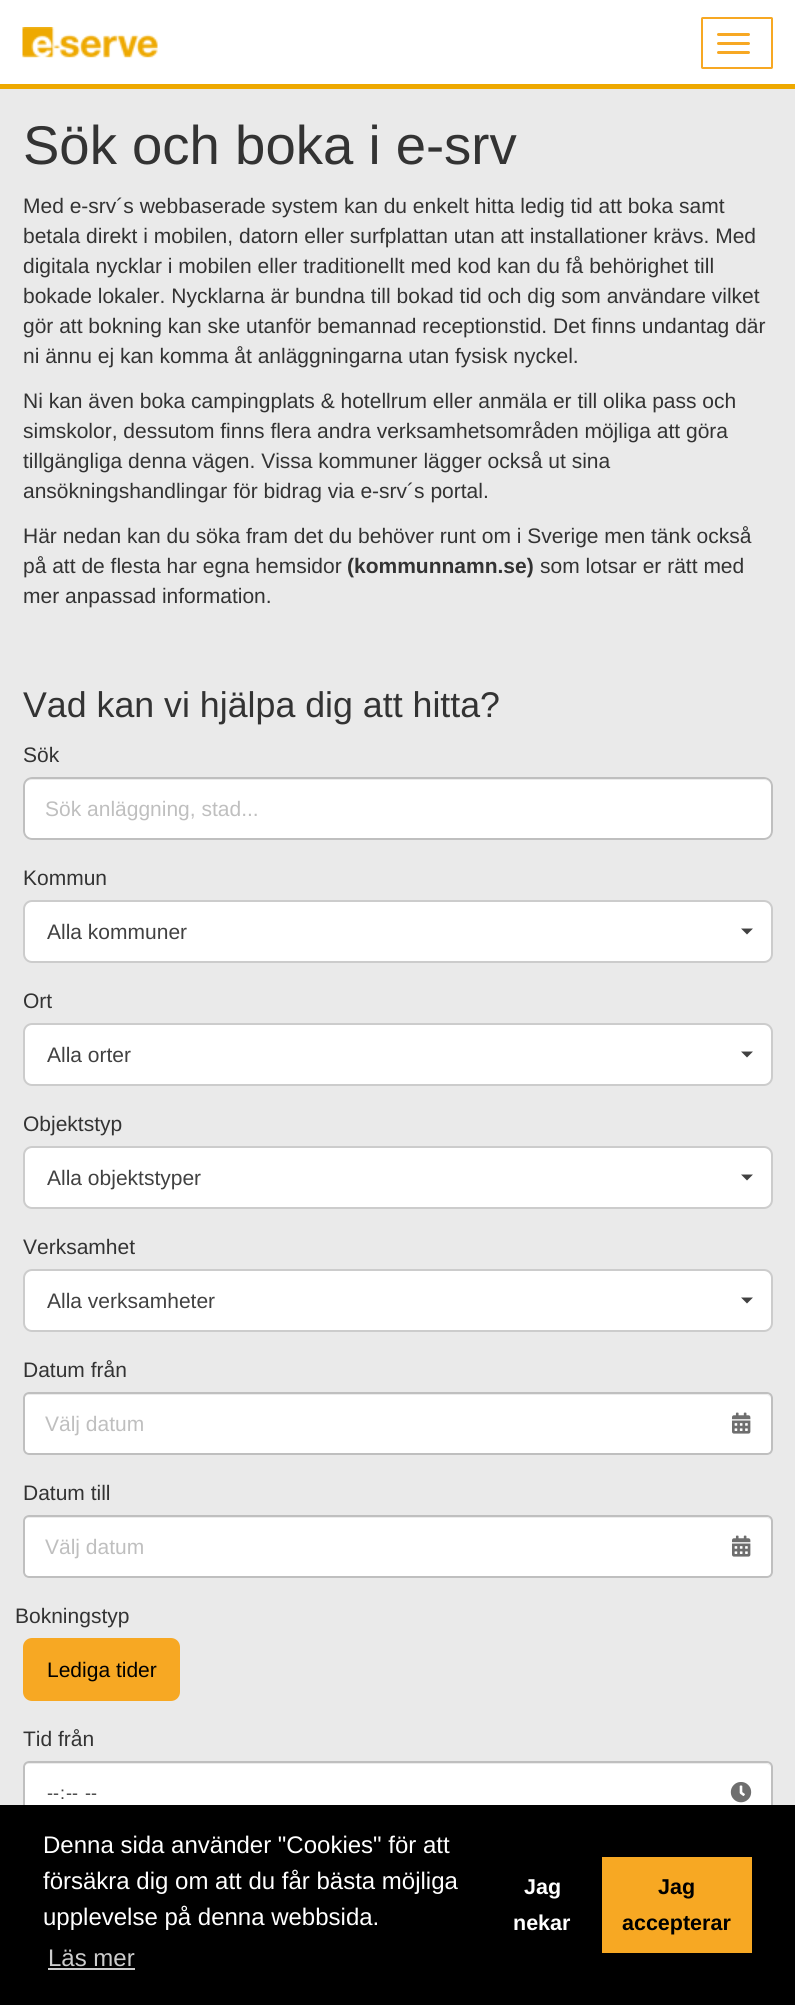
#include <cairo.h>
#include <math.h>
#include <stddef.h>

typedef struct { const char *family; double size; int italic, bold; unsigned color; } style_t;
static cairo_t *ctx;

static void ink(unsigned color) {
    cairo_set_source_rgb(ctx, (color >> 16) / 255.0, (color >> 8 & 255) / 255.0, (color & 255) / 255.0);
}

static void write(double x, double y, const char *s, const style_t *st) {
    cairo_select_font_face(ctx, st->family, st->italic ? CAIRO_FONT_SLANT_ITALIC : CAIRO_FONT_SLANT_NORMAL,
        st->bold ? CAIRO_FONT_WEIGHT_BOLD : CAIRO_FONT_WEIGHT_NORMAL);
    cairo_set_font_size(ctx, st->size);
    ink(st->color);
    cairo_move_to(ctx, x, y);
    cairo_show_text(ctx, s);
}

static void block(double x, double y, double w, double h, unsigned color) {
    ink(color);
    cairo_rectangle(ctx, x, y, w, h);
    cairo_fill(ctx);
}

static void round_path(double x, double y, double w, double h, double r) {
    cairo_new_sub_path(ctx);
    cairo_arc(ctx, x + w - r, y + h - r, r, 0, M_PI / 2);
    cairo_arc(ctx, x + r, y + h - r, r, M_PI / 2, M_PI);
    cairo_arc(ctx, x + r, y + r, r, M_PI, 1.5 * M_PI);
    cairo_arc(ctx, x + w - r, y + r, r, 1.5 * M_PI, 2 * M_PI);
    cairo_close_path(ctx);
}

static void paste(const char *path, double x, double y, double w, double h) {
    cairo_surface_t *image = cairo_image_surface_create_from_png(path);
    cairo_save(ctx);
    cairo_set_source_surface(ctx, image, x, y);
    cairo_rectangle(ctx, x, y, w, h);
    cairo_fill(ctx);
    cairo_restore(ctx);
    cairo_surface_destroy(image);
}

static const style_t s1 = {"Liberation Sans", 54.5, 0, 0, 0x333333};
static const style_t s2 = {"Liberation Sans", 21, 0, 0, 0x333333};
static const style_t s3 = {"Liberation Sans", 21, 0, 1, 0x333333};
static const style_t s4 = {"Liberation Sans", 35.75, 0, 0, 0x333333};
static const style_t s5 = {"Liberation Sans", 21, 0, 0, 0xbfbfbf};
static const style_t s6 = {"Liberation Sans", 21, 0, 0, 0x414141};
static const style_t s7 = {"Liberation Sans", 21, 0, 0, 0x000000};
static const style_t s8 = {"Liberation Sans", 18, 0, 0, 0x414141};
static const style_t s9 = {"Liberation Sans", 24, 0, 0, 0xffffff};
static const style_t s10 = {"Liberation Sans", 24, 0, 0, 0xcccccc};
static const style_t s11 = {"Liberation Sans", 21.5, 0, 1, 0xffffff};
static const style_t s12 = {"Liberation Sans", 21.5, 0, 1, 0x000000};

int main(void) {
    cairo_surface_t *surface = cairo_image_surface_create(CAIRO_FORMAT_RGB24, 795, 2005);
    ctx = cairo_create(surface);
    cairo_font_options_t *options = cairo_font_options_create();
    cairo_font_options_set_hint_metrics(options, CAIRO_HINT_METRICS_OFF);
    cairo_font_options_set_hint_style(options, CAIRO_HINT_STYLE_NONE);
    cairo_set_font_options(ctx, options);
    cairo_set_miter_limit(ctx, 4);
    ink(0xeaeaea);
    cairo_paint(ctx);
    block(0, 0, 795, 84, 0xffffff);
    block(0, 84, 795, 5, 0xeea900);
    paste("pic1.png", 22, 27, 136, 31);
    round_path(702, 18, 70, 50, 0.5);
    ink(0xf7a823);
    cairo_stroke(ctx);
    round_path(717, 33, 33, 3, 1.5);
    cairo_fill(ctx);
    round_path(717, 42, 33, 3, 1.5);
    cairo_fill(ctx);
    round_path(717, 51, 33, 3, 1.5);
    cairo_fill(ctx);
    write(23, 164, "Sök och boka i e-srv", &s1);
    write(23, 213, "Med e-srv´s webbaserade system kan du enkelt hitta ledig tid att boka samt", &s2);
    write(23, 243, "betala direkt i mobilen, datorn eller surfplattan utan att installationer krävs. Med", &s2);
    write(23, 273, "digitala nycklar i mobilen eller traditionellt med kod kan du få behörighet till", &s2);
    write(23, 303, "bokade lokaler. Nycklarna är bundna till bokad tid och dig som användare vilket", &s2);
    write(23, 333, "gör att bokning kan ske utanför bemannad receptionstid. Det finns undantag där", &s2);
    write(23, 363, "ni ännu ej kan komma åt anläggningarna utan fysisk nyckel.", &s2);
    write(23, 408, "Ni kan även boka campingplats & hotellrum eller anmäla er till olika pass och", &s2);
    write(23, 438, "simskolor, dessutom finns flera andra verksamhetsområden möjliga att göra", &s2);
    write(23, 468, "tillgängliga denna vägen. Vissa kommuner lägger också ut sina", &s2);
    write(23, 498, "ansökningshandlingar för bidrag via e-srv´s portal.", &s2);
    write(23, 543, "Här nedan kan du söka fram det du behöver runt om i Sverige men tänk också", &s2);
    write(23, 573, "på att de flesta har egna hemsidor", &s2);
    write(347, 573, "(kommunnamn.se)", &s3);
    write(540, 573, "som lotsar er rätt med", &s2);
    write(23, 603, "mer anpassad information.", &s2);
    write(23, 717, "Vad kan vi hjälpa dig att hitta?", &s4);
    write(23, 762, "Sök", &s2);
    ink(0xffffff);
    round_path(23, 777, 750, 63, 9);
    cairo_fill(ctx);
    ink(0xececec);
    cairo_new_path(ctx);
    cairo_move_to(ctx, 32, 780);
    cairo_line_to(ctx, 764, 780);
    cairo_curve_to(ctx, 768, 780, 771, 783, 771, 788);
    cairo_curve_to(ctx, 771, 783, 768, 779, 763, 779);
    cairo_line_to(ctx, 32, 779);
    cairo_curve_to(ctx, 27, 779, 24, 783, 24, 788);
    cairo_curve_to(ctx, 24, 783, 27, 780, 32, 780);
    cairo_close_path(ctx);
    cairo_fill(ctx);
    round_path(24, 778, 748, 61, 8);
    ink(0xbfbfbf);
    cairo_stroke(ctx);
    write(45, 816, "Sök anläggning, stad...", &s5);
    write(23, 885, "Kommun", &s2);
    ink(0xffffff);
    round_path(24, 901, 748, 61, 8);
    cairo_fill_preserve(ctx);
    ink(0xcccccc);
    cairo_stroke(ctx);
    write(47, 939, "Alla kommuner", &s6);
    cairo_new_path(ctx);
    cairo_move_to(ctx, 741, 928.5);
    cairo_line_to(ctx, 753, 928.5);
    cairo_line_to(ctx, 747, 934.5);
    cairo_close_path(ctx);
    cairo_fill(ctx);
    write(23, 1008, "Ort", &s2);
    ink(0xffffff);
    round_path(24, 1024, 748, 61, 8);
    cairo_fill_preserve(ctx);
    ink(0xcccccc);
    cairo_stroke(ctx);
    write(47, 1062, "Alla orter", &s6);
    cairo_new_path(ctx);
    cairo_move_to(ctx, 741, 1051.5);
    cairo_line_to(ctx, 753, 1051.5);
    cairo_line_to(ctx, 747, 1057.5);
    cairo_close_path(ctx);
    cairo_fill(ctx);
    write(23, 1131, "Objektstyp", &s2);
    ink(0xffffff);
    round_path(24, 1147, 748, 61, 8);
    cairo_fill_preserve(ctx);
    ink(0xcccccc);
    cairo_stroke(ctx);
    write(47, 1185, "Alla objektstyper", &s6);
    cairo_new_path(ctx);
    cairo_move_to(ctx, 741, 1174.5);
    cairo_line_to(ctx, 753, 1174.5);
    cairo_line_to(ctx, 747, 1180.5);
    cairo_close_path(ctx);
    cairo_fill(ctx);
    write(23, 1254, "Verksamhet", &s2);
    ink(0xffffff);
    round_path(24, 1270, 748, 61, 8);
    cairo_fill_preserve(ctx);
    ink(0xcccccc);
    cairo_stroke(ctx);
    write(47, 1308, "Alla verksamheter", &s6);
    cairo_new_path(ctx);
    cairo_move_to(ctx, 741, 1297.5);
    cairo_line_to(ctx, 753, 1297.5);
    cairo_line_to(ctx, 747, 1303.5);
    cairo_close_path(ctx);
    cairo_fill(ctx);
    write(23, 1377, "Datum från", &s2);
    ink(0xffffff);
    round_path(23, 1392, 750, 63, 6);
    cairo_fill(ctx);
    ink(0xececec);
    cairo_new_path(ctx);
    cairo_move_to(ctx, 28, 1395);
    cairo_line_to(ctx, 766, 1395);
    cairo_curve_to(ctx, 769, 1395, 771, 1397, 771, 1400);
    cairo_line_to(ctx, 771, 1399);
    cairo_curve_to(ctx, 771, 1396, 769, 1394, 766, 1394);
    cairo_line_to(ctx, 29, 1394);
    cairo_curve_to(ctx, 26, 1394, 24, 1396, 24, 1399);
    cairo_line_to(ctx, 24, 1400);
    cairo_curve_to(ctx, 24, 1397, 26, 1395, 28, 1395);
    cairo_close_path(ctx);
    cairo_fill(ctx);
    round_path(24, 1393, 748, 61, 5);
    ink(0xbfbfbf);
    cairo_stroke(ctx);
    write(45, 1431, "Välj datum", &s5);
    paste("pic2.png", 732, 1412, 19, 22);
    write(23, 1500, "Datum till", &s2);
    ink(0xffffff);
    round_path(23, 1515, 750, 63, 6);
    cairo_fill(ctx);
    ink(0xececec);
    cairo_new_path(ctx);
    cairo_move_to(ctx, 28, 1518);
    cairo_line_to(ctx, 766, 1518);
    cairo_curve_to(ctx, 769, 1518, 771, 1520, 771, 1522);
    cairo_curve_to(ctx, 771, 1519, 769, 1517, 766, 1517);
    cairo_line_to(ctx, 29, 1517);
    cairo_curve_to(ctx, 26, 1517, 24, 1519, 24, 1522);
    cairo_curve_to(ctx, 24, 1520, 26, 1518, 28, 1518);
    cairo_close_path(ctx);
    cairo_fill(ctx);
    round_path(24, 1516, 748, 61, 5);
    ink(0xbfbfbf);
    cairo_stroke(ctx);
    write(45, 1554, "Välj datum", &s5);
    paste("pic2.png", 732, 1535, 19, 22);
    write(15, 1623, "Bokningstyp", &s2);
    ink(0xf7a823);
    round_path(24, 1639, 155, 61, 8);
    cairo_fill_preserve(ctx);
    cairo_stroke(ctx);
    write(47, 1677, "Lediga tider", &s7);
    write(23, 1746, "Tid från", &s2);
    ink(0xffffff);
    round_path(23, 1761, 750, 63, 6);
    cairo_fill(ctx);
    ink(0xececec);
    cairo_new_path(ctx);
    cairo_move_to(ctx, 28, 1764);
    cairo_line_to(ctx, 766, 1764);
    cairo_curve_to(ctx, 769, 1764, 771, 1766, 771, 1768);
    cairo_curve_to(ctx, 771, 1765, 769, 1763, 766, 1763);
    cairo_line_to(ctx, 29, 1763);
    cairo_curve_to(ctx, 26, 1763, 24, 1765, 24, 1768);
    cairo_curve_to(ctx, 24, 1766, 26, 1764, 28, 1764);
    cairo_close_path(ctx);
    cairo_fill(ctx);
    round_path(24, 1762, 748, 61, 5);
    ink(0xbfbfbf);
    cairo_stroke(ctx);
    write(47, 1799, "--", &s8);
    write(60, 1799, ":", &s8);
    write(66, 1799, "--", &s8);
    write(85, 1799, "--", &s8);
    paste("pic3.png", 730, 1782, 22, 21);
    block(0, 1805, 795, 200, 0x000000);
    write(43, 1853, "Denna sida använder \"Cookies\" för att", &s9);
    write(43, 1889, "försäkra dig om att du får bästa möjliga", &s9);
    write(43, 1925, "upplevelse på denna webbsida.", &s9);
    write(48, 1966, "Läs mer", &s10);
    block(48, 1968, 87, 2, 0xcccccc);
    write(524, 1894, "Jag", &s11);
    write(513, 1930, "nekar", &s11);
    block(602, 1857, 150, 96, 0xf7a823);
    write(658, 1894, "Jag", &s12);
    write(622, 1930, "accepterar", &s12);
    cairo_surface_write_to_png(surface, "screenshot.png");
    cairo_font_options_destroy(options);
    cairo_destroy(ctx);
    cairo_surface_destroy(surface);
    return 0;
}
